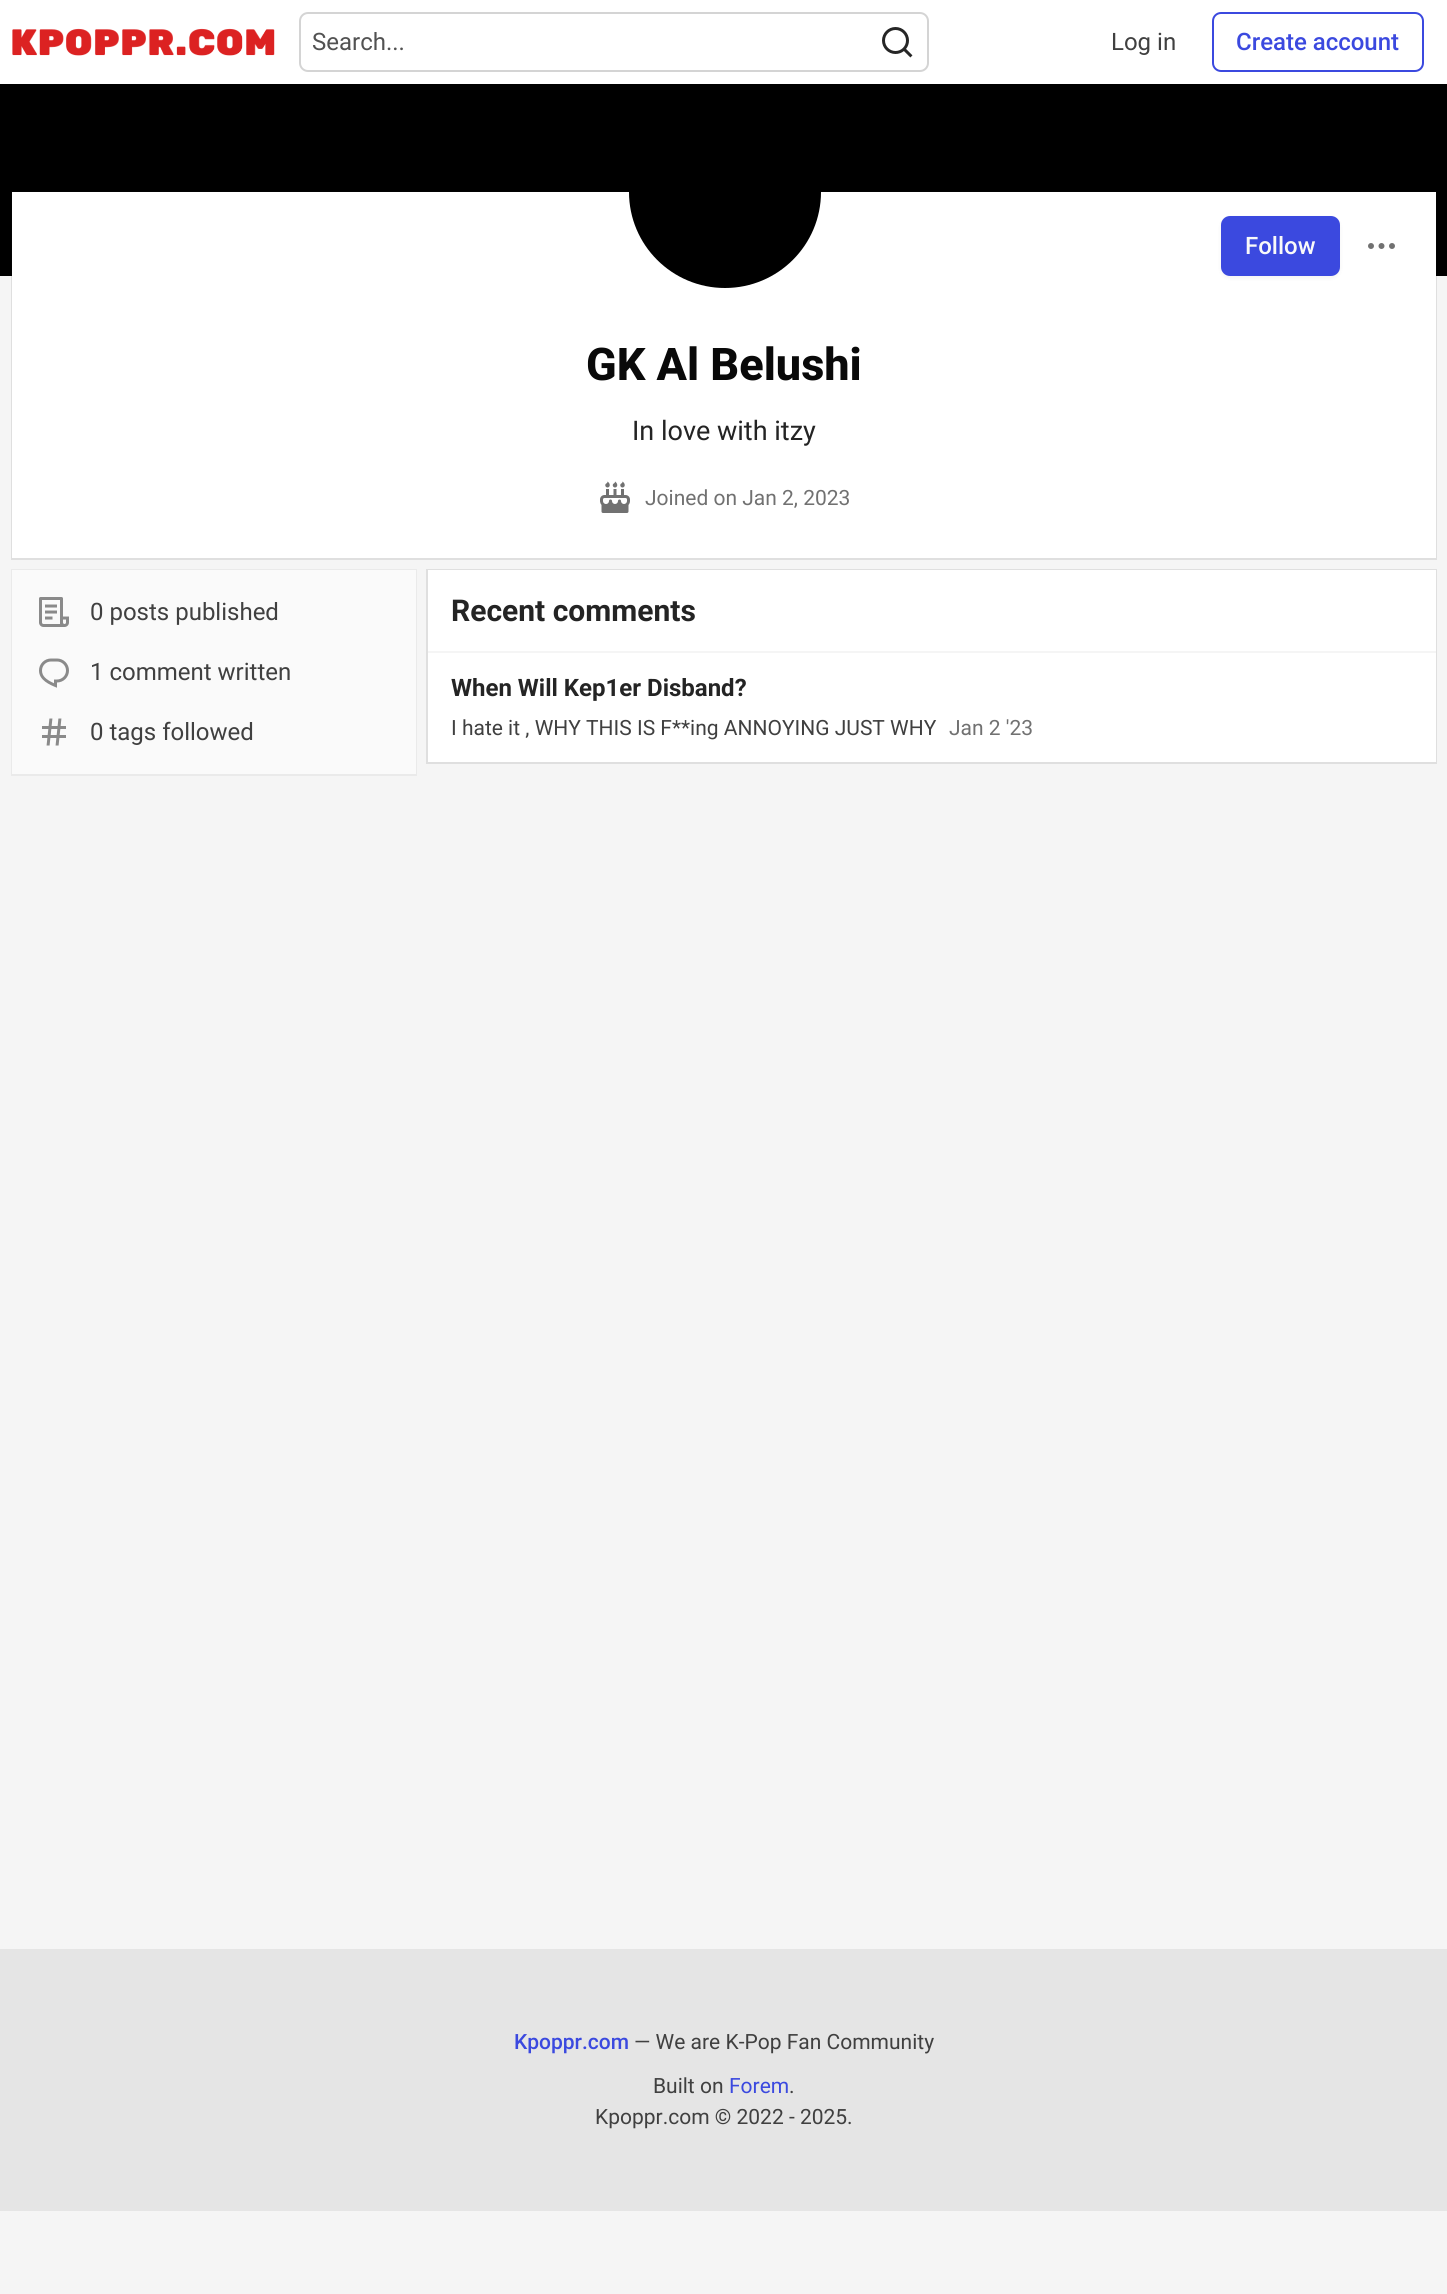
#include <cairo.h>
#include <math.h>
#include <stddef.h>

typedef struct { const char *family; double size; int italic, bold; unsigned color; } style_t;
static cairo_t *ctx;

static void ink(unsigned color) {
    cairo_set_source_rgb(ctx, (color >> 16) / 255.0, (color >> 8 & 255) / 255.0, (color & 255) / 255.0);
}

static void write(double x, double y, const char *s, const style_t *st) {
    cairo_select_font_face(ctx, st->family, st->italic ? CAIRO_FONT_SLANT_ITALIC : CAIRO_FONT_SLANT_NORMAL,
        st->bold ? CAIRO_FONT_WEIGHT_BOLD : CAIRO_FONT_WEIGHT_NORMAL);
    cairo_set_font_size(ctx, st->size);
    ink(st->color);
    cairo_move_to(ctx, x, y);
    cairo_show_text(ctx, s);
}

static void block(double x, double y, double w, double h, unsigned color) {
    ink(color);
    cairo_rectangle(ctx, x, y, w, h);
    cairo_fill(ctx);
}

static void round_path(double x, double y, double w, double h, double r) {
    cairo_new_sub_path(ctx);
    cairo_arc(ctx, x + w - r, y + h - r, r, 0, M_PI / 2);
    cairo_arc(ctx, x + r, y + h - r, r, M_PI / 2, M_PI);
    cairo_arc(ctx, x + r, y + r, r, M_PI, 1.5 * M_PI);
    cairo_arc(ctx, x + w - r, y + r, r, 1.5 * M_PI, 2 * M_PI);
    cairo_close_path(ctx);
}

static void blur_box(double x, double y, double w, double h, double r, double blur, double alpha) {
    cairo_push_group_with_content(ctx, CAIRO_CONTENT_ALPHA);
    cairo_set_operator(ctx, CAIRO_OPERATOR_SOURCE);
    for (int i = 15; i >= -15 && fmin(w, h) + blur * i / 3 > 0; i -= 2) {
        double e = blur * i / 6;
        cairo_set_source_rgba(ctx, 0, 0, 0, alpha * erfc((i - 1) / 8.5) / 2);
        round_path(x - e, y - e, w + 2 * e, h + 2 * e, fmax(0, fmin(r + e + blur * .6, fmin(w, h) / 2 + e)));
        cairo_fill(ctx);
    }
    cairo_pattern_t *soft = cairo_pop_group(ctx);
    cairo_mask(ctx, soft);
    cairo_pattern_destroy(soft);
}

static void paste(const char *path, double x, double y, double w, double h) {
    cairo_surface_t *image = cairo_image_surface_create_from_png(path);
    cairo_save(ctx);
    cairo_set_source_surface(ctx, image, x, y);
    cairo_rectangle(ctx, x, y, w, h);
    cairo_fill(ctx);
    cairo_restore(ctx);
    cairo_surface_destroy(image);
}

static const style_t s1 = {"Roboto", 24, 0, 0, 0x525252};
static const style_t s2 = {"Roboto", 24, 0, 0, 0x404040};
static const style_t s3 = {"Roboto Medium", 24, 0, 0, 0x3b49df};
static const style_t s4 = {"Roboto Medium", 24, 0, 0, 0xf9f9f9};
static const style_t s5 = {"Roboto ExtraBold", 45, 0, 0, 0x090909};
static const style_t s6 = {"Roboto", 27, 0, 0, 0x242424};
static const style_t s7 = {"Roboto", 21, 0, 0, 0x717171};
static const style_t s8 = {"Roboto", 30, 0, 1, 0x242424};
static const style_t s9 = {"Roboto", 24, 0, 1, 0x242424};
static const style_t s10 = {"Roboto", 21, 0, 0, 0x404040};
static const style_t s11 = {"Roboto Medium", 21, 0, 0, 0x3b49df};
static const style_t s12 = {"Roboto", 21, 0, 0, 0x3b49df};

int main(void) {
    cairo_surface_t *surface = cairo_image_surface_create(CAIRO_FORMAT_RGB24, 1447, 2294);
    ctx = cairo_create(surface);
    cairo_font_options_t *options = cairo_font_options_create();
    cairo_font_options_set_hint_metrics(options, CAIRO_HINT_METRICS_OFF);
    cairo_font_options_set_hint_style(options, CAIRO_HINT_STYLE_NONE);
    cairo_set_font_options(ctx, options);
    cairo_set_miter_limit(ctx, 4);
    ink(0xf5f5f5);
    cairo_paint(ctx);
    block(0, 0, 1447, 84, 0xffffff);
    paste("pic1.png", 12, 28, 263, 28);
    round_path(300, 13, 628, 58, 8);
    ink(0xd4d4d4);
    cairo_stroke(ctx);
    write(312, 50, "Search...", &s1);
    paste("pic2.png", 882, 27, 31, 31);
    write(1111, 50, "Log in", &s2);
    round_path(1213, 13, 210, 58, 8);
    ink(0x3b49df);
    cairo_stroke(ctx);
    write(1236, 50, "Create account", &s3);
    block(0, 84, 1447, 192, 0x000000);
    cairo_rectangle(ctx, 12, 192, 1424, 367);
    cairo_set_source_rgba(ctx, 0.09, 0.09, 0.09, 0.1);
    cairo_stroke(ctx);
    block(12, 192, 1424, 366, 0xffffff);
    ink(0x000000);
    cairo_arc(ctx, 725, 192, 96, 0, 2 * M_PI);
    cairo_fill(ctx);
    ink(0x000000);
    blur_box(1221, 218, 119, 60, 9, 2, 0.05);
    ink(0x3b49df);
    round_path(1221, 216, 119, 60, 9);
    cairo_fill(ctx);
    write(1245, 254, "Follow", &s4);
    paste("pic3.png", 1368, 243, 27, 6);
    write(586, 380, "GK Al Belushi", &s5);
    write(632, 440, "In love with itzy", &s6);
    paste("pic4.png", 600, 481, 30, 32);
    write(645, 505, "Joined on Jan 2, 2023", &s7);
    cairo_rectangle(ctx, 12, 570, 404, 205);
    ink(0xeaeaea);
    cairo_stroke(ctx);
    block(12, 570, 404, 204, 0xfafafa);
    paste("pic5.png", 39, 597, 30, 30);
    write(90, 620, "0 posts published", &s2);
    paste("pic6.png", 39, 658, 30, 30);
    write(90, 680, "1 comment written", &s2);
    paste("pic7.png", 42, 718, 24, 28);
    write(90, 740, "0 tags followed", &s2);
    cairo_rectangle(ctx, 427, 570, 1009, 193);
    ink(0xdfdfdf);
    cairo_stroke(ctx);
    block(428, 570, 1008, 192, 0xffffff);
    block(428, 651, 1008, 2, 0xf5f5f5);
    write(451, 621, "Recent comments", &s8);
    write(451, 696, "When Will Kep1er Disband?", &s9);
    write(451, 735, "I hate it , WHY THIS IS F**ing ANNOYING JUST WHY", &s10);
    write(949, 735, "Jan 2 '23", &s7);
    block(0, 1949, 1447, 262, 0xe5e5e5);
    write(514, 2049, "Kpoppr.com", &s11);
    write(634, 2049, "— We are K-Pop Fan Community", &s10);
    write(653, 2093, "Built on", &s10);
    write(729, 2093, "Forem", &s12);
    write(789, 2093, ".", &s10);
    write(595, 2124, "Kpoppr.com © 2022 - 2025.", &s10);
    cairo_surface_write_to_png(surface, "screenshot.png");
    cairo_font_options_destroy(options);
    cairo_destroy(ctx);
    cairo_surface_destroy(surface);
    return 0;
}
